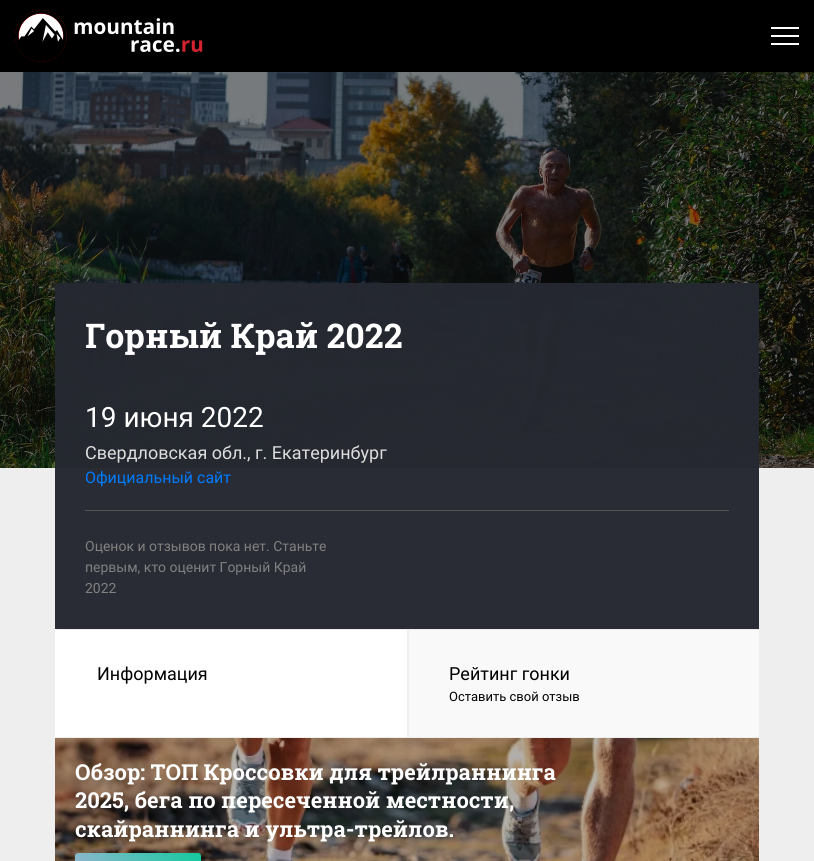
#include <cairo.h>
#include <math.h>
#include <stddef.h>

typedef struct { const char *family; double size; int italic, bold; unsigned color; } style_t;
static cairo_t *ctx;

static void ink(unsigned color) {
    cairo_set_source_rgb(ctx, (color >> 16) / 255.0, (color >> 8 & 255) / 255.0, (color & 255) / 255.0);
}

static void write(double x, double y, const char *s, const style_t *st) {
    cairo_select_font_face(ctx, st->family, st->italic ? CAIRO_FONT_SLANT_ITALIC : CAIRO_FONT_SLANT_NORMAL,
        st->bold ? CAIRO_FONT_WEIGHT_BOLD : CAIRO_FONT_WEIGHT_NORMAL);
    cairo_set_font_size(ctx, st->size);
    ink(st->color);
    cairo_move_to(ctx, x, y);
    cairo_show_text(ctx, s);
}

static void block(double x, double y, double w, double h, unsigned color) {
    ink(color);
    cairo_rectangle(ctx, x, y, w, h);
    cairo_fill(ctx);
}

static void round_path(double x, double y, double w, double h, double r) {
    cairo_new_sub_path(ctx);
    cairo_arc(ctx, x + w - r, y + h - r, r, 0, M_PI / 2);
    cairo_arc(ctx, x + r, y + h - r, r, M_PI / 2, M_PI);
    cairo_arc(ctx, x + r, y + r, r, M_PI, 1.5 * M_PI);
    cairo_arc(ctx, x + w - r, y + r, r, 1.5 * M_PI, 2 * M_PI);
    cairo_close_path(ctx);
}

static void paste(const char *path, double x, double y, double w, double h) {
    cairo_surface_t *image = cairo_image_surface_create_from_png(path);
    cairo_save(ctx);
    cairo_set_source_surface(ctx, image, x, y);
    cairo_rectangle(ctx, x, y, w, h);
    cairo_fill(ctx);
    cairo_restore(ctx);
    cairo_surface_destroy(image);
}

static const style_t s1 = {"Roboto Slab", 34, 0, 1, 0xffffff};
static const style_t s2 = {"Roboto", 28, 0, 0, 0xffffff};
static const style_t s3 = {"Roboto", 18, 0, 0, 0xdddddd};
static const style_t s4 = {"Roboto", 16, 0, 0, 0x007bff};
static const style_t s5 = {"Roboto", 14, 0, 0, 0x818181};
static const style_t s6 = {"Roboto", 18, 0, 0, 0x000000};
static const style_t s7 = {"Roboto", 13, 0, 0, 0x000000};
static const style_t s8 = {"Roboto Slab", 22, 0, 1, 0xffffff};

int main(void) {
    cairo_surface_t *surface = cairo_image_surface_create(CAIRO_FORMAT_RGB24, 814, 861);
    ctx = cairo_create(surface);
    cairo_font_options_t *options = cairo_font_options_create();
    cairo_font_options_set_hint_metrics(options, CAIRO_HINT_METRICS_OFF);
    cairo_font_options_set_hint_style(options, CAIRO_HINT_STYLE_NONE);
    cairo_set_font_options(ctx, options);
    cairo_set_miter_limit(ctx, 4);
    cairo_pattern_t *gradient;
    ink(0xeeeeee);
    cairo_paint(ctx);
    block(0, 0, 814, 72, 0x000000);
    paste("pic1.png", 15, 10, 188, 52);
    block(771, 35, 28, 2, 0xffffff);
    block(771, 27, 28, 2, 0xffffff);
    block(771, 43, 28, 2, 0xffffff);
    paste("pic2.png", 0, 72, 814, 396);
    cairo_set_source_rgba(ctx, 0.145, 0.157, 0.188, 0.98);
    cairo_rectangle(ctx, 55, 283, 704, 346);
    cairo_fill(ctx);
    write(85, 348, "Горный Край 2022", &s1);
    write(85, 427, "19 июня 2022", &s2);
    write(85, 459, "Свердловская обл., г. Екатеринбург", &s3);
    write(85, 483, "Официальный сайт", &s4);
    block(85, 510, 644, 1, 0x555555);
    write(85, 551, "Оценок и отзывов пока нет. Станьте", &s5);
    write(85, 572, "первым, кто оценит Горный Край", &s5);
    write(85, 593, "2022", &s5);
    block(55, 629, 352, 109, 0xffffff);
    ink(0xeeeeee);
    cairo_new_path(ctx);
    cairo_move_to(ctx, 55, 629);
    cairo_line_to(ctx, 407, 629);
    cairo_line_to(ctx, 407, 630);
    cairo_line_to(ctx, 57, 630);
    cairo_close_path(ctx);
    cairo_fill(ctx);
    cairo_new_path(ctx);
    cairo_move_to(ctx, 407, 738);
    cairo_line_to(ctx, 55, 738);
    cairo_line_to(ctx, 57, 737);
    cairo_line_to(ctx, 407, 737);
    cairo_close_path(ctx);
    cairo_fill(ctx);
    ink(0xffffff);
    cairo_new_path(ctx);
    cairo_move_to(ctx, 55, 738);
    cairo_line_to(ctx, 55, 629);
    cairo_line_to(ctx, 57, 630);
    cairo_line_to(ctx, 57, 737);
    cairo_close_path(ctx);
    cairo_fill(ctx);
    write(97, 680, "Информация", &s6);
    block(409, 630, 350, 107, 0xf9f9f9);
    write(449, 680, "Рейтинг гонки", &s6);
    write(449, 701, "Оставить свой отзыв", &s7);
    paste("pic3.png", 55, 738, 704, 123);
    write(75, 780, "Обзор: ТОП Кроссовки для трейлраннинга", &s8);
    write(75, 808, "2025, бега по пересеченной местности,", &s8);
    write(75, 837, "скайраннинга и ультра-трейлов.", &s8);
    gradient = cairo_pattern_create_linear(100, 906, 177, 829);
    cairo_pattern_add_color_stop_rgba(gradient, 0, 0.631, 0.702, 0.835, 1);
    cairo_pattern_add_color_stop_rgba(gradient, 1, 0.071, 0.792, 0.62, 1);
    cairo_set_source(ctx, gradient);
    cairo_pattern_destroy(gradient);
    round_path(75, 853, 126, 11, 3);
    cairo_fill(ctx);
    cairo_surface_write_to_png(surface, "screenshot.png");
    cairo_font_options_destroy(options);
    cairo_destroy(ctx);
    cairo_surface_destroy(surface);
    return 0;
}
